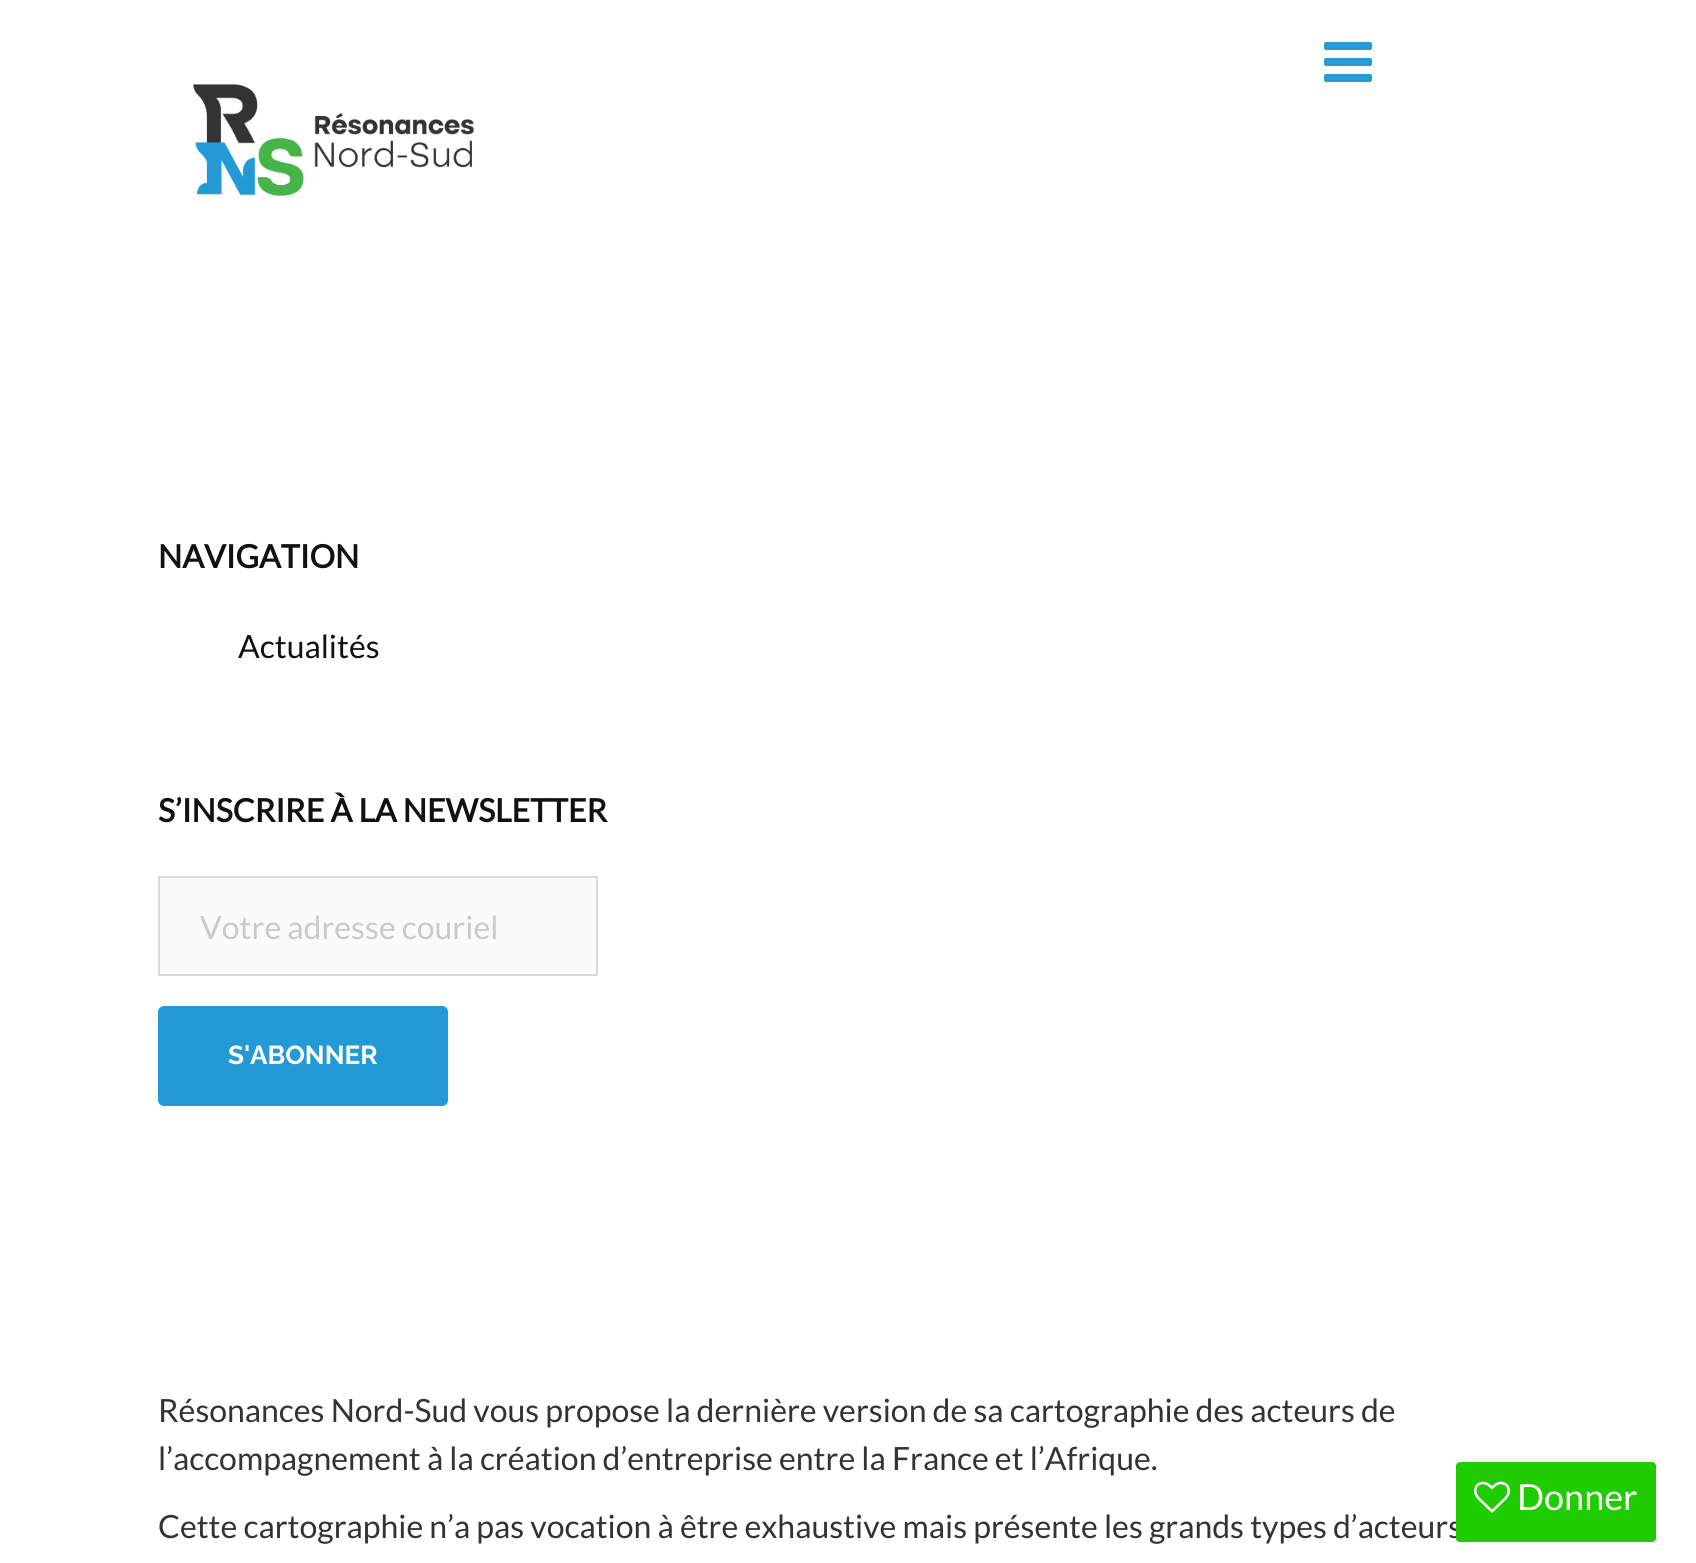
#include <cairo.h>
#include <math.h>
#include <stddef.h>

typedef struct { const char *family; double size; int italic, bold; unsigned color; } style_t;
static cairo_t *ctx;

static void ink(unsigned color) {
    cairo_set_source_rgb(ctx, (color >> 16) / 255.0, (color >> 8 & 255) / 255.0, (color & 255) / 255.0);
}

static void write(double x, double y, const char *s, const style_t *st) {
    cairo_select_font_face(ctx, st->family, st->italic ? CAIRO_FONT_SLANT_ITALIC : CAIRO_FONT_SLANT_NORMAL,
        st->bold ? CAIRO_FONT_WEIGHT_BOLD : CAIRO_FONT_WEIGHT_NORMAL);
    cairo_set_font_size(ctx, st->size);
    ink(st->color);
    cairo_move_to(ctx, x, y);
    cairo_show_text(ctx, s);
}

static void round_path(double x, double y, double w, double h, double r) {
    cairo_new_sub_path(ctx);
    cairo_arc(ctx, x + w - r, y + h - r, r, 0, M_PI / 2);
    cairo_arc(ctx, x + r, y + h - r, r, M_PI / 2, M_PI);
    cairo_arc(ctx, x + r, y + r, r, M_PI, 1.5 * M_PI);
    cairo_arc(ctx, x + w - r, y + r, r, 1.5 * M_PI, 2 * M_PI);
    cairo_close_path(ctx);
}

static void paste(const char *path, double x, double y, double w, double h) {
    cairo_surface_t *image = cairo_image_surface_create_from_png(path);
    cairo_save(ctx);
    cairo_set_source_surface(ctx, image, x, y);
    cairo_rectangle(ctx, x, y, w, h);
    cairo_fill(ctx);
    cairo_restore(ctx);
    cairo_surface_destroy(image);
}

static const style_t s1 = {"Lato", 32, 0, 1, 0x111111};
static const style_t s2 = {"Lato", 32, 0, 0, 0x111111};
static const style_t s3 = {"Lato", 32, 0, 0, 0xcacaca};
static const style_t s4 = {"Raleway", 26, 0, 1, 0xffffff};
static const style_t s5 = {"Lato", 32, 0, 0, 0x333333};
static const style_t s6 = {"Lato", 36, 0, 0, 0xffffff};

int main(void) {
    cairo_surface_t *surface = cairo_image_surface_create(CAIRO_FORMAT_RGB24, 1696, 1563);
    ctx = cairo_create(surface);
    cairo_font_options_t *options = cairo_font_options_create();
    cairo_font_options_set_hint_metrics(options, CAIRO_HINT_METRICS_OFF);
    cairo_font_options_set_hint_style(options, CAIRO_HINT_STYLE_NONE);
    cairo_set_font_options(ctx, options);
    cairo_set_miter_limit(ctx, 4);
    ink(0xffffff);
    cairo_paint(ctx);
    paste("pic1.png", 1324, 42, 48, 40);
    paste("pic2.png", 193, 84, 282, 112);
    write(158, 568, "NAVIGATION", &s1);
    write(238, 658, "Actualités", &s2);
    write(158, 822, "S’INSCRIRE À LA NEWSLETTER", &s1);
    ink(0xfafafa);
    cairo_rectangle(ctx, 159, 877, 438, 98);
    cairo_fill_preserve(ctx);
    ink(0xdbdbdb);
    cairo_stroke(ctx);
    write(200, 939, "Votre adresse couriel", &s3);
    ink(0x239ad5);
    round_path(159, 1007, 288, 98, 5);
    cairo_fill_preserve(ctx);
    cairo_stroke(ctx);
    write(228, 1064, "S'ABONNER", &s4);
    write(158, 1422, "Résonances Nord-Sud vous propose la dernière version de sa cartographie des acteurs de", &s5);
    write(158, 1470, "l’accompagnement à la création d’entreprise entre la France et l’Afrique.", &s5);
    write(158, 1538, "Cette cartographie n’a pas vocation à être exhaustive mais présente les grands types d’acteurs", &s5);
    ink(0x1fcc00);
    round_path(1456, 1462, 200, 80, 4);
    cairo_fill(ctx);
    paste("pic3.png", 1474, 1481, 36, 32);
    write(1517, 1510, "Donner", &s6);
    cairo_surface_write_to_png(surface, "screenshot.png");
    cairo_font_options_destroy(options);
    cairo_destroy(ctx);
    cairo_surface_destroy(surface);
    return 0;
}
